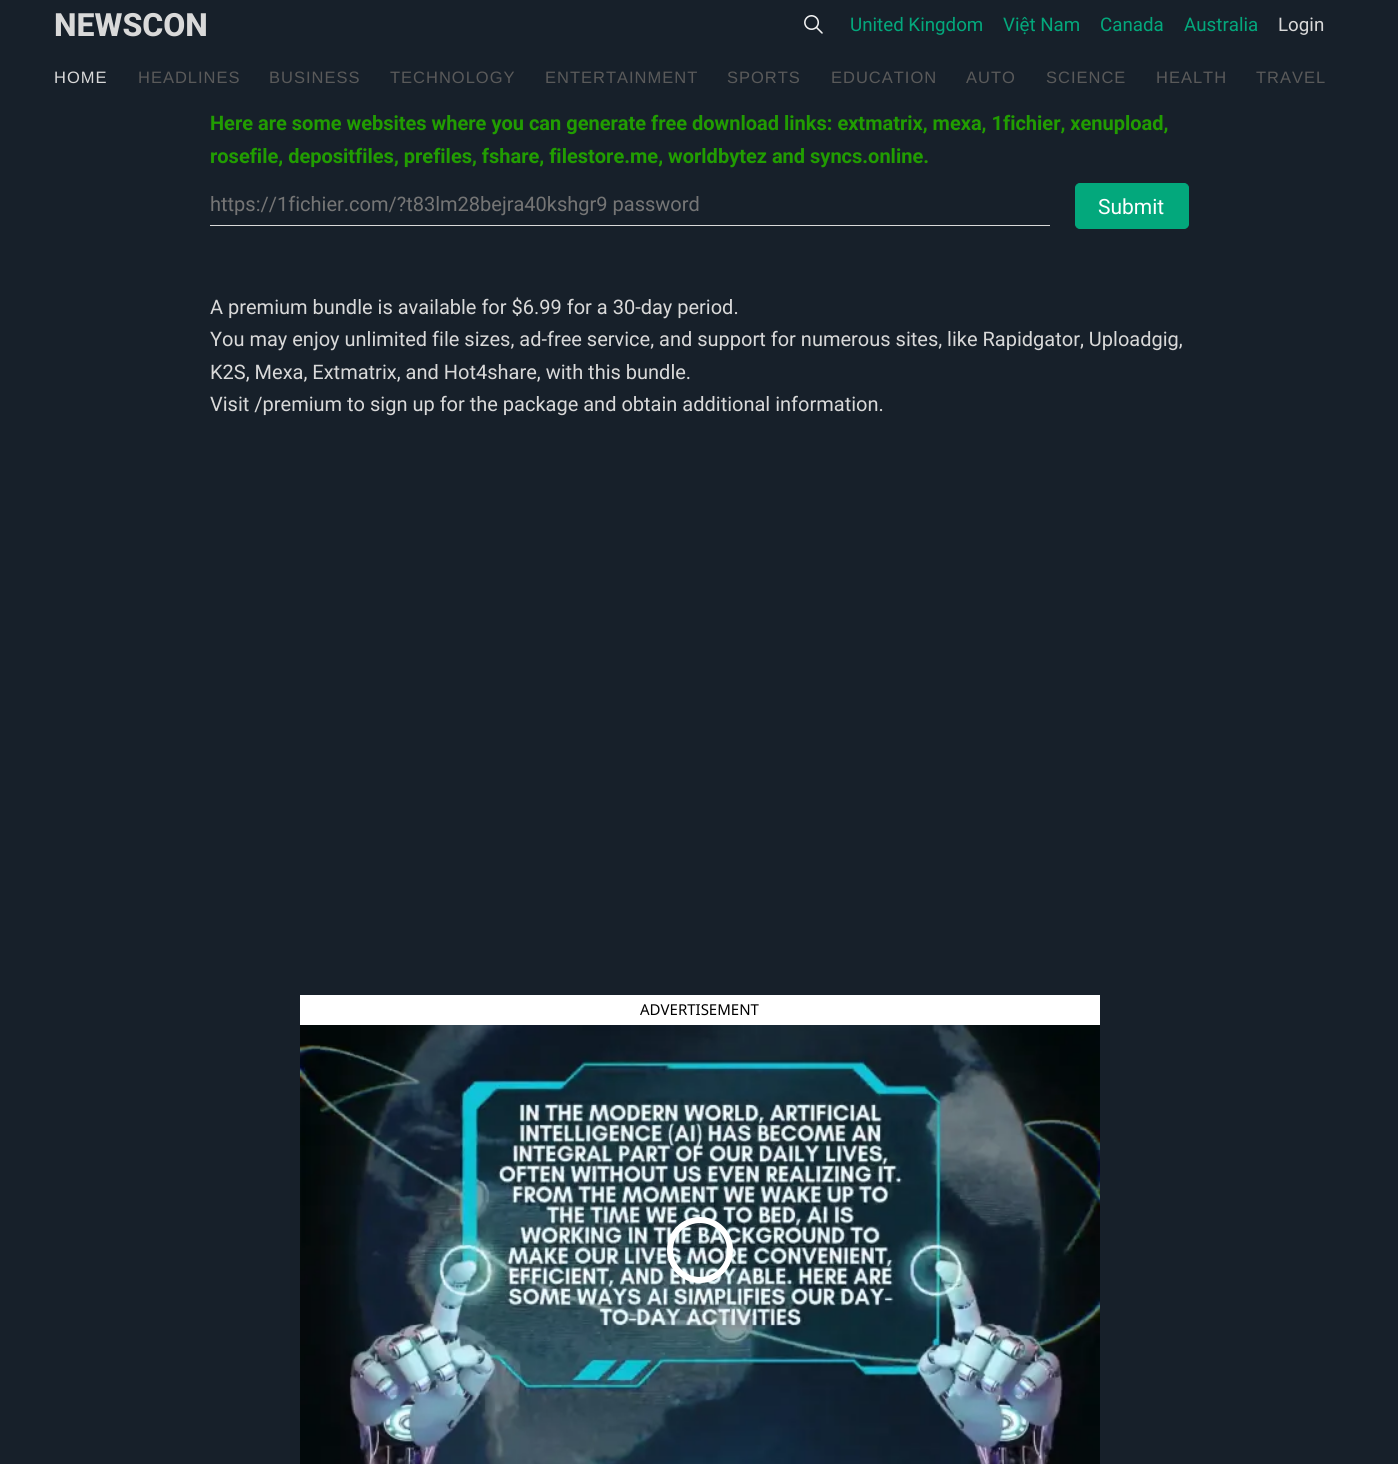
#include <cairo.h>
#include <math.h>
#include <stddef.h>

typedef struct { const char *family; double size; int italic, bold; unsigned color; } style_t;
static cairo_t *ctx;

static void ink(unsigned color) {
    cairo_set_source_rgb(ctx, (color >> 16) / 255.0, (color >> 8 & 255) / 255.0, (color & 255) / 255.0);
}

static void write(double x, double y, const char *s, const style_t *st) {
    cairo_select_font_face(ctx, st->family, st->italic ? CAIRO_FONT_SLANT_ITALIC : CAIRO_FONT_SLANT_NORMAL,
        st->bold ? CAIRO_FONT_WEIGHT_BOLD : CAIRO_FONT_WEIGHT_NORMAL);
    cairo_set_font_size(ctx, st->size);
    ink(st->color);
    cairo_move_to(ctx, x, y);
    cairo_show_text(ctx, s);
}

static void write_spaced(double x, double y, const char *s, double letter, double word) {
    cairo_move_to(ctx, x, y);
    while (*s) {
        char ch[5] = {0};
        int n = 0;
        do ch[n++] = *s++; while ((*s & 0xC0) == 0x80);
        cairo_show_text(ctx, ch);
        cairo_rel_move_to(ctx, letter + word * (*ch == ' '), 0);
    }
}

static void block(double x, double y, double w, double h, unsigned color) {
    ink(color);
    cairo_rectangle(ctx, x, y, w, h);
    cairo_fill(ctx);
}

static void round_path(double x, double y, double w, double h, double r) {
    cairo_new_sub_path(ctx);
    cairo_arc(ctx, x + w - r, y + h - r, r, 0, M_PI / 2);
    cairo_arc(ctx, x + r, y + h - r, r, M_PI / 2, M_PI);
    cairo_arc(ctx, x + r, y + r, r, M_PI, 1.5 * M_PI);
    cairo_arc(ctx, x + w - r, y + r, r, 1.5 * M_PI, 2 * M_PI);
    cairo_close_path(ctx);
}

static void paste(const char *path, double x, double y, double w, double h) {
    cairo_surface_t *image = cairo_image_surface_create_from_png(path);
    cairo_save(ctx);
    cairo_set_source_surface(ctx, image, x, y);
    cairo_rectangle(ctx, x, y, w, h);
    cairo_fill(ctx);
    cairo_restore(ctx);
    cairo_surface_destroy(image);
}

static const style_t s1 = {"Roboto ExtraBold", 32, 0, 0, 0xd9d9d9};
static const style_t s2 = {"Roboto", 18.75, 0, 0, 0x03a87c};
static const style_t s3 = {"Roboto", 18.75, 0, 0, 0xd9d9d9};
static const style_t s4 = {"Roboto", 20, 0, 1, 0x219d01};
static const style_t s5 = {"Roboto", 20, 0, 0, 0x757575};
static const style_t s6 = {"Roboto", 21, 0, 0, 0xffffff};
static const style_t s7 = {"Roboto", 20, 0, 0, 0xd9d9d9};
static const style_t s8 = {"Noto Sans", 15, 0, 0, 0x000000};

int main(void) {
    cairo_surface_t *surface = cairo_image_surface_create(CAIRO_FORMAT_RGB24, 1398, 1464);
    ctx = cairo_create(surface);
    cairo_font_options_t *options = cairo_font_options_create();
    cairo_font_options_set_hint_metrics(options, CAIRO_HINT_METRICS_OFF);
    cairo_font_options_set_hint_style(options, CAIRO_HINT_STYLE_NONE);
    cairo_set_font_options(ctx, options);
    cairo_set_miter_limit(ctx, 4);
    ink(0x17202a);
    cairo_paint(ctx);
    write(54, 36, "NEWSCON", &s1);
    paste("pic1.png", 804, 15, 19, 19);
    write(850, 31, "United Kingdom", &s2);
    write(1003, 31, "Việt Nam", &s2);
    write(1100, 31, "Canada", &s2);
    write(1184, 31, "Australia", &s2);
    write(1278, 31, "Login", &s3);
    cairo_select_font_face(ctx, "Liberation Sans", CAIRO_FONT_SLANT_NORMAL, CAIRO_FONT_WEIGHT_NORMAL);
    cairo_set_font_size(ctx, 16.5);
    write_spaced(54, 83, "HOME", 1, 0);
    ink(0x5a5a5a);
    write_spaced(138, 83, "HEADLINES", 1, 0);
    write_spaced(269, 83, "BUSINESS", 1, 0);
    write_spaced(390, 83, "TECHNOLOGY", 1, 0);
    write_spaced(545, 83, "ENTERTAINMENT", 1, 0);
    write_spaced(727, 83, "SPORTS", 1, 0);
    write_spaced(831, 83, "EDUCATION", 1, 0);
    write_spaced(966, 83, "AUTO", 1, 0);
    write_spaced(1046, 83, "SCIENCE", 1, 0);
    write_spaced(1156, 83, "HEALTH", 1, 0);
    write_spaced(1256, 83, "TRAVEL", 1, 0);
    write(210, 130, "Here are some websites where you can generate free download links: extmatrix, mexa, 1fichier, xenupload,", &s4);
    write(210, 163, "rosefile, depositfiles, prefiles, fshare, filestore.me, worldbytez and syncs.online.", &s4);
    block(210, 225, 840, 1, 0xd9d9d9);
    write(210, 211, "https://1fichier.com/?t83lm28bejra40kshgr9 password", &s5);
    ink(0x03a87c);
    round_path(1075.5, 183.5, 113, 45, 4.5);
    cairo_fill_preserve(ctx);
    cairo_set_line_width(ctx, 1);
    cairo_stroke(ctx);
    write(1098, 214, "Submit", &s6);
    write(210, 314, "A premium bundle is available for $6.99 for a 30-day period.", &s7);
    write(210, 346, "You may enjoy unlimited file sizes, ad-free service, and support for numerous sites, like Rapidgator, Uploadgig,", &s7);
    write(210, 379, "K2S, Mexa, Extmatrix, and Hot4share, with this bundle.", &s7);
    write(210, 411, "Visit /premium to sign up for the package and obtain additional information.", &s7);
    block(300, 995, 800, 30, 0xffffff);
    write(640, 1015, "ADVERTISEMENT", &s8);
    paste("pic2.png", 300, 1025, 800, 439);
    cairo_arc(ctx, 700, 1250, 30, 0, 2 * M_PI);
    cairo_set_source_rgba(ctx, 1, 1, 1, 0.2);
    cairo_set_line_width(ctx, 6);
    cairo_stroke(ctx);
    cairo_arc(ctx, 700, 1250, 30, 0, 2 * M_PI);
    ink(0xffffff);
    cairo_stroke(ctx);
    cairo_surface_write_to_png(surface, "screenshot.png");
    cairo_font_options_destroy(options);
    cairo_destroy(ctx);
    cairo_surface_destroy(surface);
    return 0;
}
